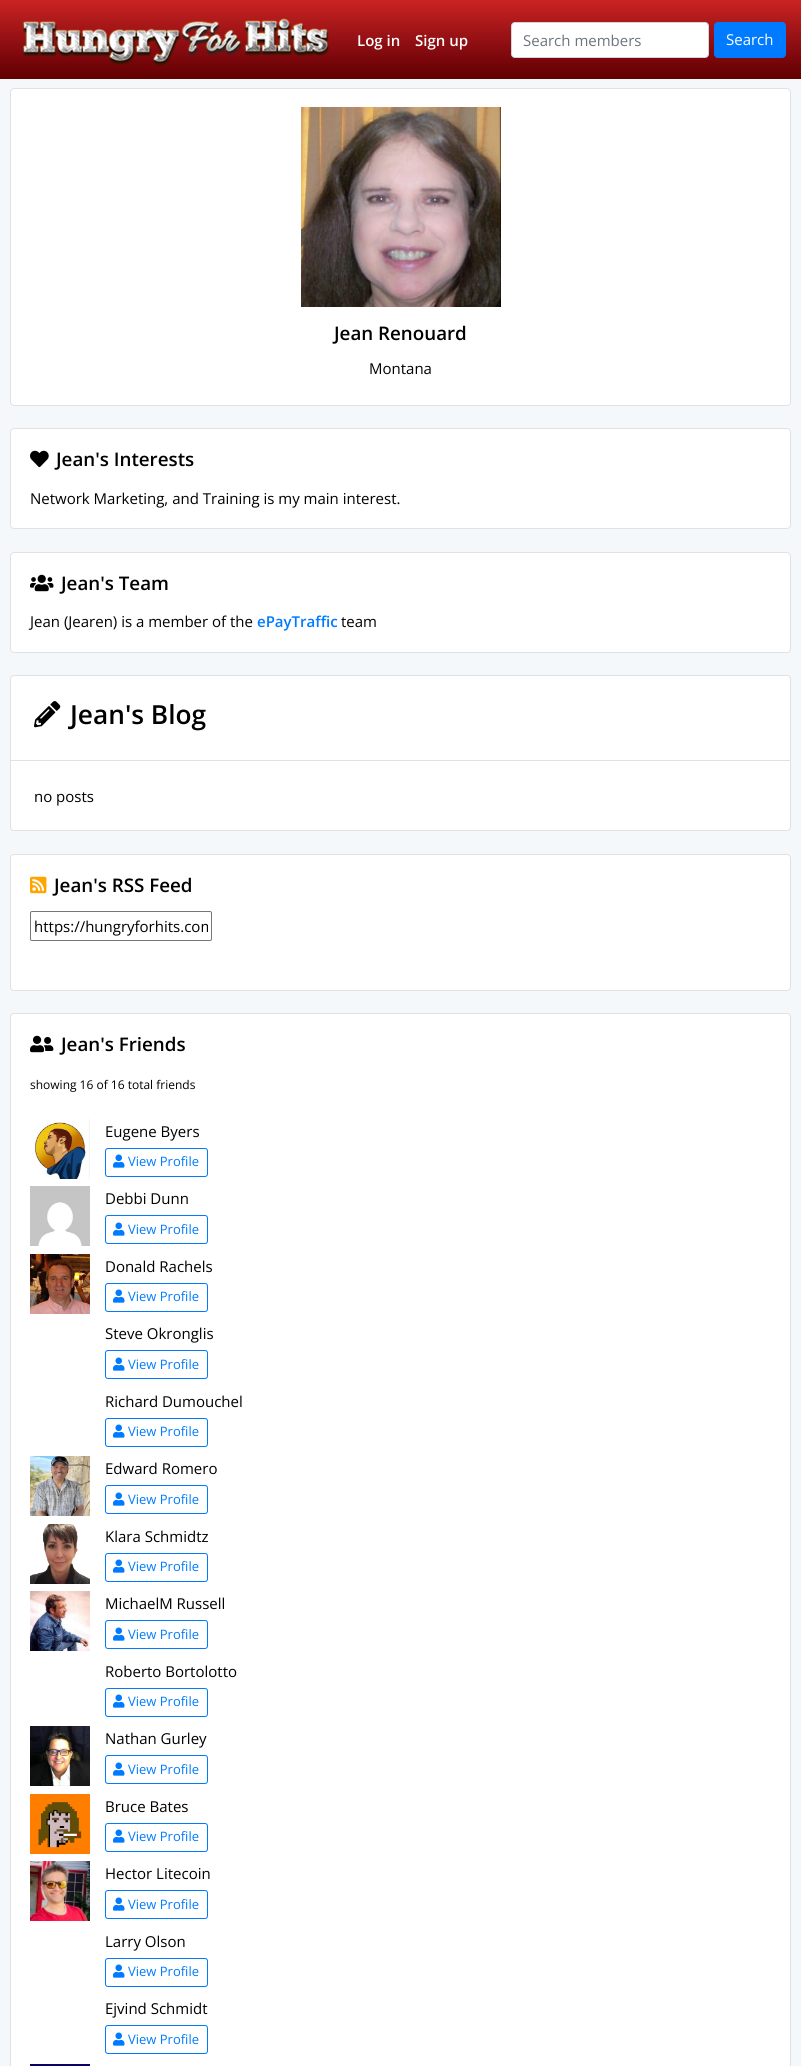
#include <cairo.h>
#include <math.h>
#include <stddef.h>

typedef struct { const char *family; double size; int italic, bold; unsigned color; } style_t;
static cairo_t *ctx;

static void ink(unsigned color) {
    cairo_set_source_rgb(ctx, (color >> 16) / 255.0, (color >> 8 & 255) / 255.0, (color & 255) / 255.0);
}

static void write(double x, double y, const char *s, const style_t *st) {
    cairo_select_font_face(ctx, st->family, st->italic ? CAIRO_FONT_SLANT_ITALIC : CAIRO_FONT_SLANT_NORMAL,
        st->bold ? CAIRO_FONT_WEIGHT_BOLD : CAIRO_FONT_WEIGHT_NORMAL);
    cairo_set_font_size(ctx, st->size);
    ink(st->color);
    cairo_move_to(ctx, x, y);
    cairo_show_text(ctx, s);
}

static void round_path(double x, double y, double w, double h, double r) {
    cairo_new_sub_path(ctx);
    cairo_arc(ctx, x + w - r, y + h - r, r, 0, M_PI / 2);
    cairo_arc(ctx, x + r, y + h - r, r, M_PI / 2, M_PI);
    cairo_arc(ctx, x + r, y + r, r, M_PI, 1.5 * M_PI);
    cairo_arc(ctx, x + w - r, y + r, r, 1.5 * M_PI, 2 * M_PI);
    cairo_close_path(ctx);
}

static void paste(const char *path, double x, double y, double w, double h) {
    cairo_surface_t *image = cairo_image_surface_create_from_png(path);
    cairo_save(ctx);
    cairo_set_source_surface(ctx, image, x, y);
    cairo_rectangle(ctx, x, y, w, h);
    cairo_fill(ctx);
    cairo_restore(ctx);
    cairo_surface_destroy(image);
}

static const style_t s1 = {"Open Sans SemiBold", 15, 0, 0, 0xffffff};
static const style_t s2 = {"Open Sans", 15, 0, 0, 0x6c757d};
static const style_t s3 = {"Open Sans", 15, 0, 0, 0xffffff};
static const style_t s4 = {"Open Sans SemiBold", 18.75, 0, 0, 0x000000};
static const style_t s5 = {"Open Sans", 15, 0, 0, 0x000000};
static const style_t s6 = {"Open Sans SemiBold", 15, 0, 0, 0x007bff};
static const style_t s7 = {"Open Sans SemiBold", 26.25, 0, 0, 0x000000};
static const style_t s8 = {"Open Sans", 12, 0, 0, 0x000000};
static const style_t s9 = {"Open Sans", 13, 0, 0, 0x007bff};

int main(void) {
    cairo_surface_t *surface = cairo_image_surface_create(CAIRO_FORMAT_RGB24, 801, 2066);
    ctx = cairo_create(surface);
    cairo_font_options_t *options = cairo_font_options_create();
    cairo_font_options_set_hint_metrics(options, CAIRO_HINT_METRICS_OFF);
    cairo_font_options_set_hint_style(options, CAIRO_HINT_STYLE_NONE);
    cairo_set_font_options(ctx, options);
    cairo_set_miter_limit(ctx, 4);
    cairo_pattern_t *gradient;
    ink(0xf4f8fb);
    cairo_paint(ctx);
    gradient = cairo_pattern_create_linear(401, 79, 401, 0);
    cairo_pattern_add_color_stop_rgba(gradient, 0, 0.38, 0, 0, 1);
    cairo_pattern_add_color_stop_rgba(gradient, 0.25, 0.478, 0.027, 0.047, 1);
    cairo_pattern_add_color_stop_rgba(gradient, 0.5, 0.58, 0.063, 0.078, 1);
    cairo_pattern_add_color_stop_rgba(gradient, 0.75, 0.686, 0.102, 0.106, 1);
    cairo_pattern_add_color_stop_rgba(gradient, 1, 0.796, 0.137, 0.137, 1);
    cairo_set_source(ctx, gradient);
    cairo_pattern_destroy(gradient);
    cairo_rectangle(ctx, 0, 0, 801, 79);
    cairo_fill(ctx);
    paste("pic1.png", 22, 18, 308, 48);
    write(357, 46, "Log in", &s1);
    write(415, 46, "Sign up", &s1);
    round_path(511.5, 22.5, 197, 35, 3.5);
    cairo_fill_preserve(ctx);
    ink(0xced4da);
    cairo_set_line_width(ctx, 1);
    cairo_stroke(ctx);
    write(523, 46, "Search members", &s2);
    ink(0x007bff);
    round_path(714.5, 22.5, 71, 35, 3.5);
    cairo_fill_preserve(ctx);
    cairo_stroke(ctx);
    write(726, 45, "Search", &s3);
    round_path(10, 88, 781, 318, 4);
    cairo_fill(ctx);
    round_path(10.5, 88.5, 780, 317, 3.5);
    cairo_set_source_rgba(ctx, 0, 0, 0, 0.12);
    cairo_stroke(ctx);
    paste("pic2.png", 301, 107, 200, 200);
    write(334, 340, "Jean Renouard", &s4);
    write(369, 374, "Montana", &s5);
    ink(0xffffff);
    round_path(10, 428, 781, 101, 4);
    cairo_fill(ctx);
    round_path(10.5, 428.5, 780, 100, 3.5);
    cairo_set_source_rgba(ctx, 0, 0, 0, 0.12);
    cairo_stroke(ctx);
    paste("pic3.png", 30, 450, 19, 18);
    write(56, 466, "Jean's Interests", &s4);
    write(30, 504, "Network Marketing, and Training is my main interest.", &s5);
    ink(0xffffff);
    round_path(10, 552, 781, 101, 4);
    cairo_fill(ctx);
    round_path(10.5, 552.5, 780, 100, 3.5);
    cairo_set_source_rgba(ctx, 0, 0, 0, 0.12);
    cairo_stroke(ctx);
    paste("pic4.png", 30, 574, 24, 18);
    write(61, 590, "Jean's Team", &s4);
    write(30, 627, "Jean (Jearen) is a member of the", &s5);
    write(257, 627, "ePayTraffic", &s6);
    write(341, 627, "team", &s5);
    ink(0xffffff);
    cairo_new_path(ctx);
    cairo_move_to(ctx, 14, 675);
    cairo_line_to(ctx, 787, 675);
    cairo_curve_to(ctx, 789, 675, 791, 677, 791, 679);
    cairo_line_to(ctx, 791, 761);
    cairo_line_to(ctx, 10, 761);
    cairo_line_to(ctx, 10, 679);
    cairo_curve_to(ctx, 10, 677, 12, 675, 14, 675);
    cairo_close_path(ctx);
    cairo_fill(ctx);
    cairo_new_path(ctx);
    cairo_move_to(ctx, 14, 675.5);
    cairo_line_to(ctx, 787, 675.5);
    cairo_curve_to(ctx, 789, 675.5, 790.5, 677, 790.5, 679);
    cairo_line_to(ctx, 790.5, 760.5);
    cairo_line_to(ctx, 10.5, 760.5);
    cairo_line_to(ctx, 10.5, 679);
    cairo_curve_to(ctx, 10.5, 677, 12, 675.5, 14, 675.5);
    cairo_close_path(ctx);
    cairo_set_source_rgba(ctx, 0, 0, 0, 0.12);
    cairo_stroke(ctx);
    paste("pic5.png", 34, 701, 27, 27);
    write(70, 724, "Jean's Blog", &s7);
    ink(0xffffff);
    cairo_new_path(ctx);
    cairo_move_to(ctx, 10, 760);
    cairo_line_to(ctx, 791, 760);
    cairo_line_to(ctx, 791, 827);
    cairo_curve_to(ctx, 791, 829, 789, 831, 787, 831);
    cairo_line_to(ctx, 14, 831);
    cairo_curve_to(ctx, 12, 831, 10, 829, 10, 827);
    cairo_close_path(ctx);
    cairo_fill(ctx);
    cairo_new_path(ctx);
    cairo_move_to(ctx, 10.5, 760.5);
    cairo_line_to(ctx, 790.5, 760.5);
    cairo_line_to(ctx, 790.5, 827);
    cairo_curve_to(ctx, 790.5, 829, 789, 830.5, 787, 830.5);
    cairo_line_to(ctx, 14, 830.5);
    cairo_curve_to(ctx, 12, 830.5, 10.5, 829, 10.5, 827);
    cairo_close_path(ctx);
    cairo_set_source_rgba(ctx, 0, 0, 0, 0.12);
    cairo_stroke(ctx);
    write(34, 802, "no posts", &s5);
    ink(0xffffff);
    round_path(10, 854, 781, 137, 4);
    cairo_fill(ctx);
    round_path(10.5, 854.5, 780, 136, 3.5);
    cairo_set_source_rgba(ctx, 0, 0, 0, 0.12);
    cairo_stroke(ctx);
    paste("pic6.png", 30, 876, 17, 18);
    write(54, 892, "Jean's RSS Feed", &s4);
    round_path(30.5, 911.5, 181, 29, 1.5);
    ink(0x767676);
    cairo_stroke(ctx);
    cairo_save(ctx);
    cairo_rectangle(ctx, 34, 914, 174, 24);
    cairo_clip(ctx);
    write(34, 932, "https://hungryforhits.com", &s5);
    cairo_restore(ctx);
    ink(0xffffff);
    round_path(10, 1013, 781, 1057, 4);
    cairo_fill(ctx);
    round_path(10.5, 1013.5, 780, 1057, 3.5);
    cairo_set_source_rgba(ctx, 0, 0, 0, 0.12);
    cairo_stroke(ctx);
    paste("pic7.png", 30, 1035, 24, 18);
    write(61, 1051, "Jean's Friends", &s4);
    write(30, 1089, "showing 16 of 16 total friends", &s8);
    paste("pic8.png", 34, 1119, 56, 60);
    write(105, 1137, "Eugene Byers", &s5);
    round_path(105.5, 1148.5, 102, 28, 2.5);
    ink(0x007bff);
    cairo_stroke(ctx);
    paste("pic9.png", 113, 1154, 12, 14);
    write(128, 1166, "View Profile", &s9);
    paste("pic10.png", 30, 1186, 60, 60);
    write(105, 1204, "Debbi Dunn", &s5);
    round_path(105.5, 1215.5, 102, 28, 2.5);
    ink(0x007bff);
    cairo_stroke(ctx);
    paste("pic9.png", 113, 1222, 12, 14);
    write(128, 1234, "View Profile", &s9);
    paste("pic11.png", 30, 1254, 60, 60);
    write(105, 1272, "Donald Rachels", &s5);
    round_path(105.5, 1283.5, 102, 28, 2.5);
    ink(0x007bff);
    cairo_stroke(ctx);
    paste("pic9.png", 113, 1289, 12, 14);
    write(128, 1301, "View Profile", &s9);
    write(105, 1339, "Steve Okronglis", &s5);
    round_path(105.5, 1350.5, 102, 28, 2.5);
    ink(0x007bff);
    cairo_stroke(ctx);
    paste("pic9.png", 113, 1357, 12, 14);
    write(128, 1369, "View Profile", &s9);
    write(105, 1407, "Richard Dumouchel", &s5);
    round_path(105.5, 1418.5, 102, 28, 2.5);
    ink(0x007bff);
    cairo_stroke(ctx);
    paste("pic9.png", 113, 1424, 12, 14);
    write(128, 1436, "View Profile", &s9);
    paste("pic12.png", 30, 1456, 60, 60);
    write(105, 1474, "Edward Romero", &s5);
    round_path(105.5, 1485.5, 102, 28, 2.5);
    ink(0x007bff);
    cairo_stroke(ctx);
    paste("pic9.png", 113, 1492, 12, 14);
    write(128, 1504, "View Profile", &s9);
    paste("pic13.png", 30, 1524, 60, 60);
    write(105, 1542, "Klara Schmidtz", &s5);
    round_path(105.5, 1553.5, 102, 28, 2.5);
    ink(0x007bff);
    cairo_stroke(ctx);
    paste("pic9.png", 113, 1559, 12, 14);
    write(128, 1571, "View Profile", &s9);
    paste("pic14.png", 30, 1591, 60, 60);
    write(105, 1609, "MichaelM Russell", &s5);
    round_path(105.5, 1620.5, 102, 28, 2.5);
    ink(0x007bff);
    cairo_stroke(ctx);
    paste("pic9.png", 113, 1627, 12, 14);
    write(128, 1639, "View Profile", &s9);
    write(105, 1677, "Roberto Bortolotto", &s5);
    round_path(105.5, 1688.5, 102, 28, 2.5);
    ink(0x007bff);
    cairo_stroke(ctx);
    paste("pic9.png", 113, 1694, 12, 14);
    write(128, 1706, "View Profile", &s9);
    paste("pic15.png", 30, 1726, 60, 60);
    write(105, 1744, "Nathan Gurley", &s5);
    round_path(105.5, 1755.5, 102, 28, 2.5);
    ink(0x007bff);
    cairo_stroke(ctx);
    paste("pic9.png", 113, 1762, 12, 14);
    write(128, 1774, "View Profile", &s9);
    paste("pic16.png", 30, 1794, 60, 60);
    write(105, 1812, "Bruce Bates", &s5);
    round_path(105.5, 1823.5, 102, 28, 2.5);
    ink(0x007bff);
    cairo_stroke(ctx);
    paste("pic9.png", 113, 1829, 12, 14);
    write(128, 1841, "View Profile", &s9);
    paste("pic17.png", 30, 1861, 60, 60);
    write(105, 1879, "Hector Litecoin", &s5);
    round_path(105.5, 1890.5, 102, 28, 2.5);
    ink(0x007bff);
    cairo_stroke(ctx);
    paste("pic9.png", 113, 1897, 12, 14);
    write(128, 1909, "View Profile", &s9);
    write(105, 1947, "Larry Olson", &s5);
    round_path(105.5, 1958.5, 102, 28, 2.5);
    ink(0x007bff);
    cairo_stroke(ctx);
    paste("pic9.png", 113, 1964, 12, 14);
    write(128, 1976, "View Profile", &s9);
    write(105, 2014, "Ejvind Schmidt", &s5);
    round_path(105.5, 2025.5, 102, 28, 2.5);
    ink(0x007bff);
    cairo_stroke(ctx);
    paste("pic9.png", 113, 2032, 12, 14);
    write(128, 2044, "View Profile", &s9);
    paste("pic18.png", 30, 2064, 60, 2);
    cairo_surface_write_to_png(surface, "screenshot.png");
    cairo_font_options_destroy(options);
    cairo_destroy(ctx);
    cairo_surface_destroy(surface);
    return 0;
}
